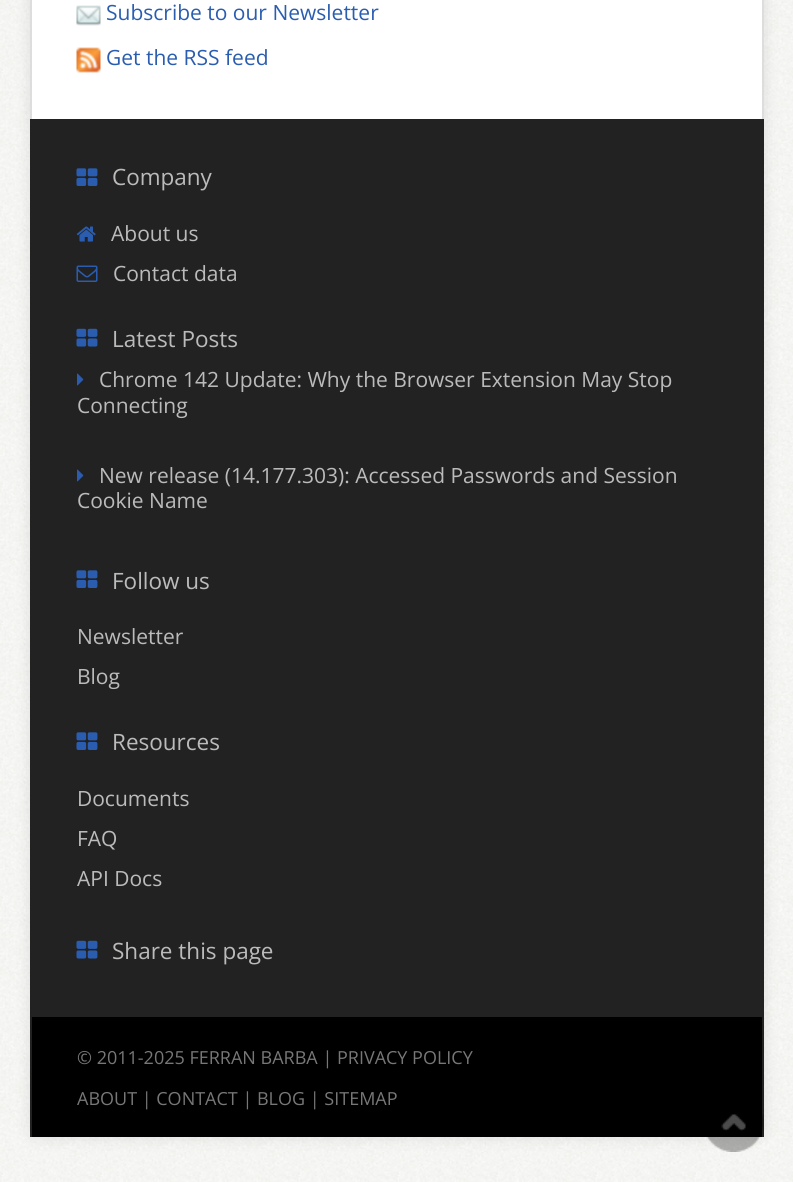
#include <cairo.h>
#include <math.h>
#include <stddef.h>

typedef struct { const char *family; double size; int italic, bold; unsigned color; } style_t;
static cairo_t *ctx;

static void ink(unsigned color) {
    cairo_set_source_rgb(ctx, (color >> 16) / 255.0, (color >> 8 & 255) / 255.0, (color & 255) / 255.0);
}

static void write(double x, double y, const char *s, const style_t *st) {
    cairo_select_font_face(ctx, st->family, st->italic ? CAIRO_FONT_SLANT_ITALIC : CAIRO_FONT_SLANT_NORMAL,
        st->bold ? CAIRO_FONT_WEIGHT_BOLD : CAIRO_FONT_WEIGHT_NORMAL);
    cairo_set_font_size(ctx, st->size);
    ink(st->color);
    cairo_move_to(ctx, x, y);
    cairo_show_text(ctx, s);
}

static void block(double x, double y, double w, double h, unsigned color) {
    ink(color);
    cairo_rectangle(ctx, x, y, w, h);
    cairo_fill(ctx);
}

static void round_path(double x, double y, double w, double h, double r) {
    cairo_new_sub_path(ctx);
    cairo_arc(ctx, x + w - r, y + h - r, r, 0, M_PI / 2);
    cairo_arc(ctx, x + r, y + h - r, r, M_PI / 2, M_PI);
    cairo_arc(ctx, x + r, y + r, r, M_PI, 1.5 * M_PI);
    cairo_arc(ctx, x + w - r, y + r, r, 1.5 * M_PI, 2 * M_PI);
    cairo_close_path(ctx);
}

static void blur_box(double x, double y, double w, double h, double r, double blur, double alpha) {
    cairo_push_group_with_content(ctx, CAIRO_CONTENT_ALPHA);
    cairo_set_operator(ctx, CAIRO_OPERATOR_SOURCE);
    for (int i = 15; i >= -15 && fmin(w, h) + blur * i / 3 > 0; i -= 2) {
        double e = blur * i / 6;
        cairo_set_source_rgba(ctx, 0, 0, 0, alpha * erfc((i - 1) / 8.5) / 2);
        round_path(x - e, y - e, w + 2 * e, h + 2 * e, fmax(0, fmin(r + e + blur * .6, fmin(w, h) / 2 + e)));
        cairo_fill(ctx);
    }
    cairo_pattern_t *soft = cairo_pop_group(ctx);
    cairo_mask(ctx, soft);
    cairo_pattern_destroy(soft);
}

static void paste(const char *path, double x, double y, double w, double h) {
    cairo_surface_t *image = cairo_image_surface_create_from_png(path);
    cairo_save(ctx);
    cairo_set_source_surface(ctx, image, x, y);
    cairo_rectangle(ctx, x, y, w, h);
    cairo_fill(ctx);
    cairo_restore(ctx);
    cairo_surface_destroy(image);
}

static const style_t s1 = {"Open Sans", 21, 0, 0, 0x2a5db0};
static const style_t s2 = {"Open Sans", 22.5, 0, 0, 0xbbbbbb};
static const style_t s3 = {"Open Sans", 21, 0, 0, 0xbbbbbb};
static const style_t s4 = {"Open Sans", 18, 0, 0, 0x777777};

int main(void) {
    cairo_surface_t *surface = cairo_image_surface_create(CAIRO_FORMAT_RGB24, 793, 1182);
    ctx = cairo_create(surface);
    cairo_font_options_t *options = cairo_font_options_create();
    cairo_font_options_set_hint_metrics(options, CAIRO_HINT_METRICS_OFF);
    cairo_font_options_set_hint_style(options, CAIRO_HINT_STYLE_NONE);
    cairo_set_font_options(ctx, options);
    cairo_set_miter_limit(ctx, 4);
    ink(0xffffff);
    cairo_paint(ctx);
    paste("pic1.png", 0, 0, 793, 1182);
    ink(0x000000);
    blur_box(30, -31, 734, 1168, 8, 7.5, 0.1);
    block(32, 0, 730, 119, 0xffffff);
    ink(0xdddddd);
    cairo_set_fill_rule(ctx, CAIRO_FILL_RULE_EVEN_ODD);
    cairo_new_path(ctx);
    cairo_move_to(ctx, 38, -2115);
    cairo_line_to(ctx, 756, -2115);
    cairo_curve_to(ctx, 760, -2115, 764, -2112, 764, -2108);
    cairo_line_to(ctx, 764, 1130);
    cairo_curve_to(ctx, 764, 1134, 760, 1137, 756, 1137);
    cairo_line_to(ctx, 38, 1137);
    cairo_curve_to(ctx, 33, 1137, 30, 1134, 30, 1130);
    cairo_line_to(ctx, 30, -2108);
    cairo_curve_to(ctx, 30, -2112, 33, -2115, 38, -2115);
    cairo_close_path(ctx);
    cairo_move_to(ctx, 38, -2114);
    cairo_line_to(ctx, 756, -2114);
    cairo_curve_to(ctx, 759, -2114, 762, -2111, 762, -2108);
    cairo_line_to(ctx, 762, 1130);
    cairo_curve_to(ctx, 762, 1134, 759, 1137, 756, 1137);
    cairo_line_to(ctx, 38, 1137);
    cairo_curve_to(ctx, 34, 1137, 32, 1134, 32, 1130);
    cairo_line_to(ctx, 32, -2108);
    cairo_curve_to(ctx, 32, -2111, 34, -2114, 38, -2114);
    cairo_close_path(ctx);
    cairo_fill(ctx);
    paste("pic2.png", 76, 5, 25, 21);
    write(106, 20, "Subscribe to our Newsletter", &s1);
    paste("pic3.png", 76, 47, 25, 26);
    write(106, 65, "Get the RSS feed", &s1);
    block(30, 119, 734, 1018, 0x222222);
    paste("pic4.png", 76, 168, 22, 18);
    write(112, 185, "Company", &s2);
    paste("pic5.png", 76, 226, 20, 16);
    write(111, 241, "About us", &s3);
    paste("pic6.png", 76, 265, 22, 17);
    write(113, 281, "Contact data", &s3);
    paste("pic7.png", 76, 328, 22, 19);
    write(112, 347, "Latest Posts", &s2);
    paste("pic8.png", 77, 373, 7, 13);
    write(99, 387, "Chrome 142 Update: Why the Browser Extension May Stop", &s3);
    write(77, 413, "Connecting", &s3);
    paste("pic8.png", 77, 469, 7, 13);
    write(99, 483, "New release (14.177.303): Accessed Passwords and Session", &s3);
    write(77, 508, "Cookie Name", &s3);
    paste("pic4.png", 76, 570, 22, 18);
    write(112, 589, "Follow us", &s2);
    write(77, 644, "Newsletter", &s3);
    write(77, 684, "Blog", &s3);
    paste("pic4.png", 76, 732, 22, 18);
    write(112, 750, "Resources", &s2);
    write(77, 806, "Documents", &s3);
    write(77, 846, "FAQ", &s3);
    write(77, 886, "API Docs", &s3);
    paste("pic7.png", 76, 940, 22, 19);
    write(112, 959, "Share this page", &s2);
    block(32, 1017, 730, 120, 0x000000);
    write(77, 1064, "© 2011-2025 FERRAN BARBA | PRIVACY POLICY", &s4);
    write(77, 1105, "ABOUT | CONTACT | BLOG | SITEMAP", &s4);
    paste("pic9.png", 706, 1114, 58, 38);
    cairo_surface_write_to_png(surface, "screenshot.png");
    cairo_font_options_destroy(options);
    cairo_destroy(ctx);
    cairo_surface_destroy(surface);
    return 0;
}
